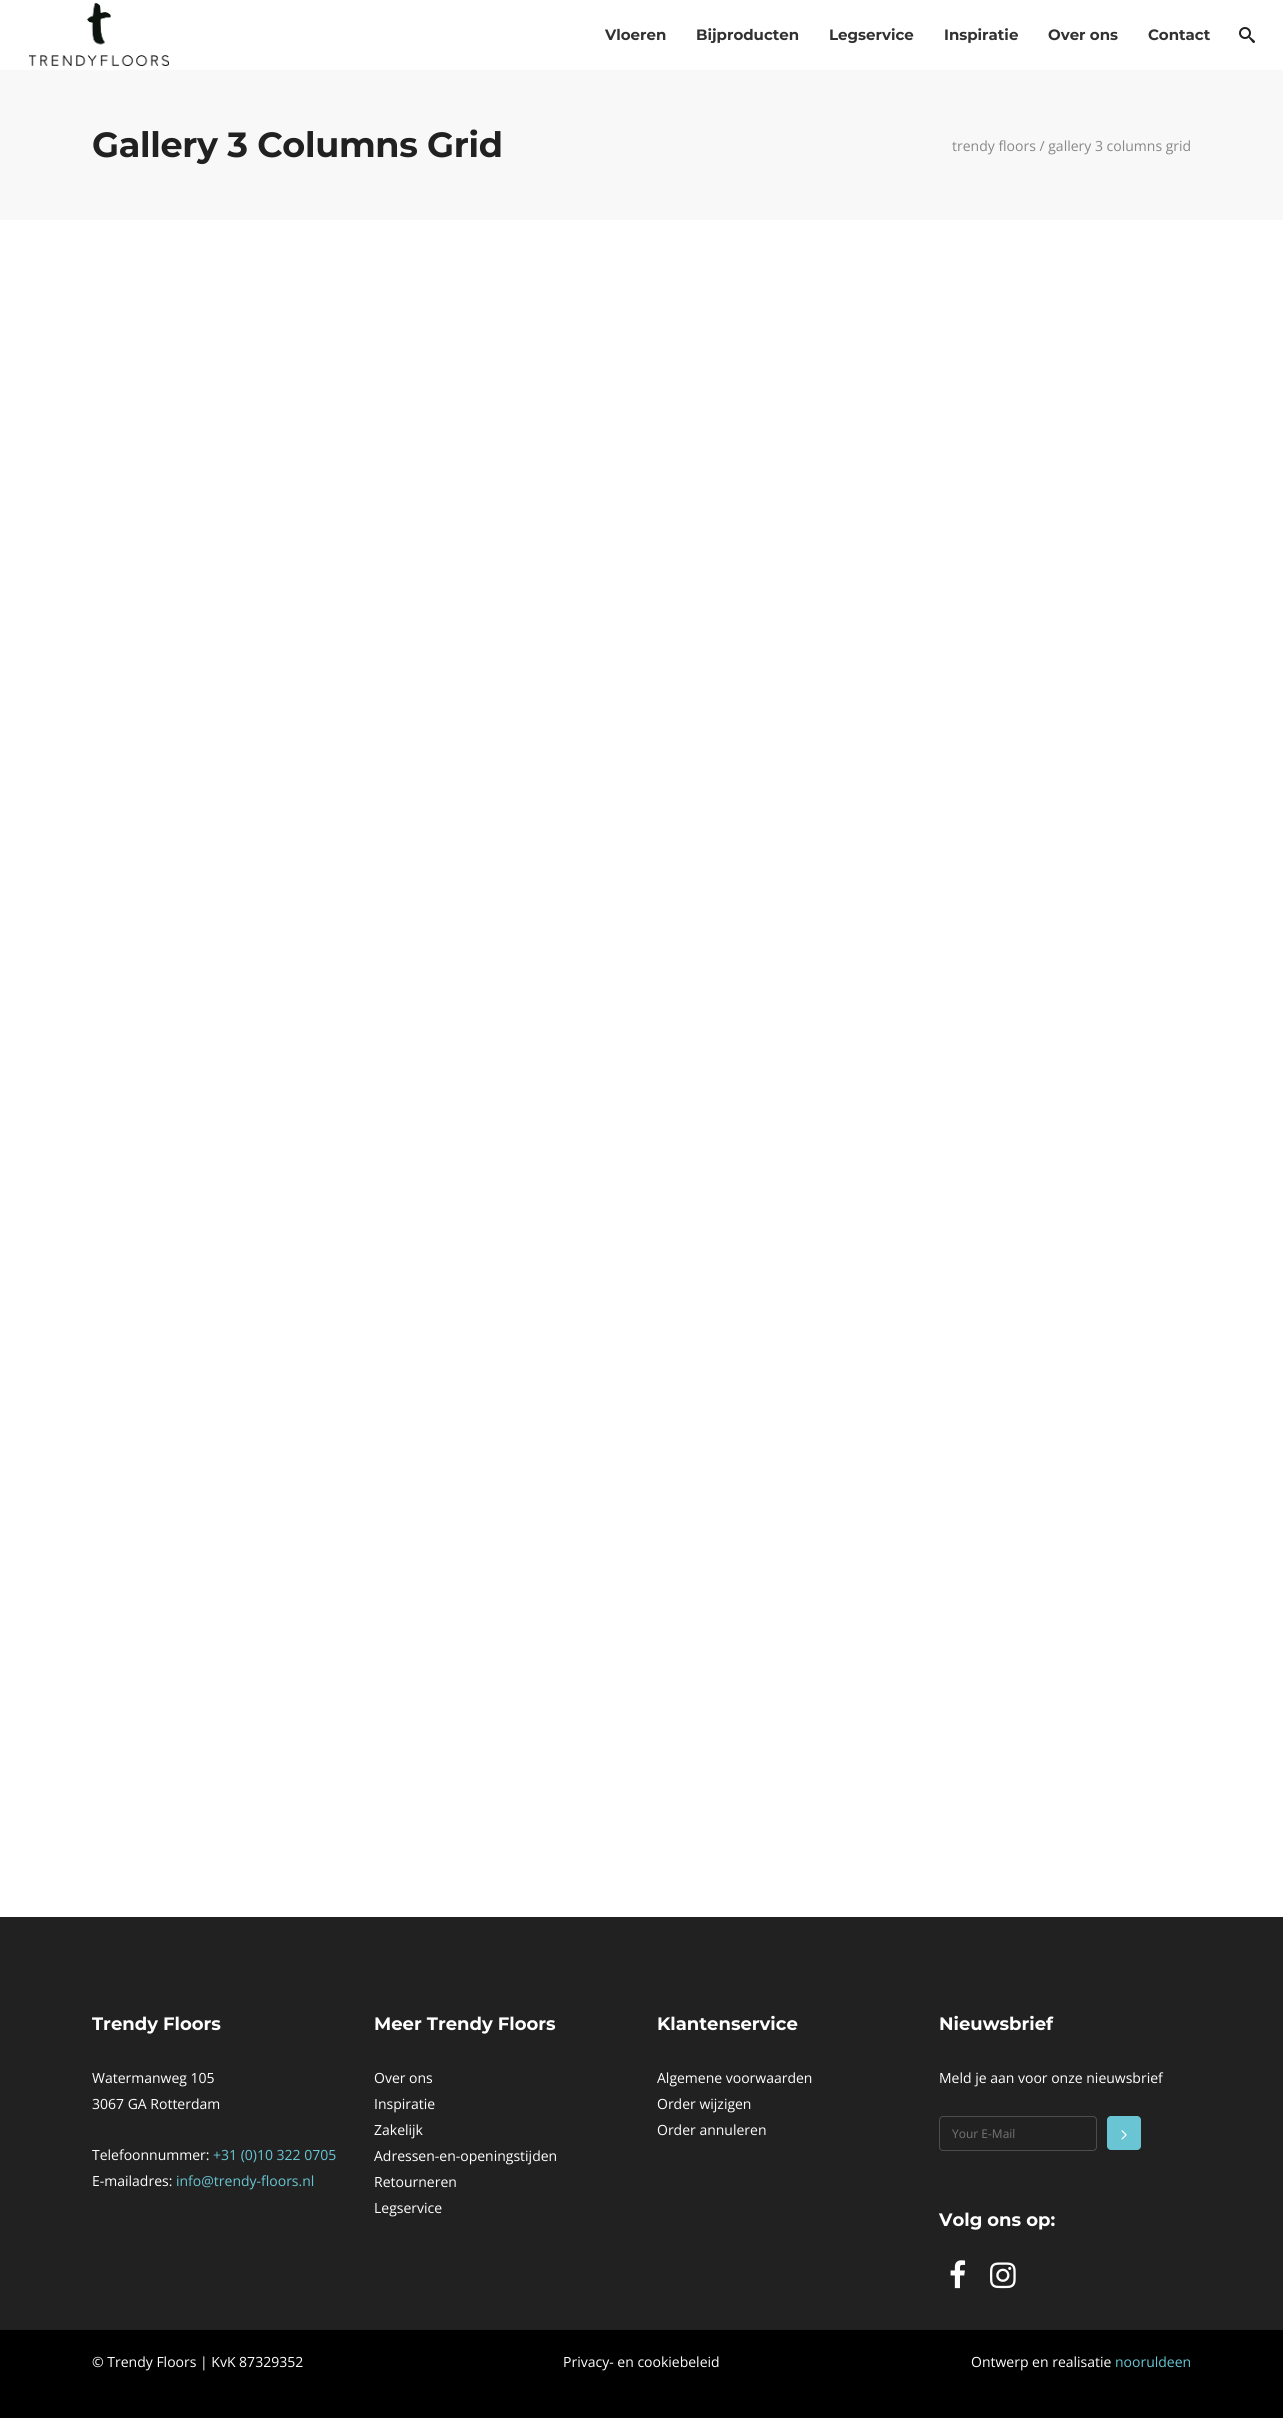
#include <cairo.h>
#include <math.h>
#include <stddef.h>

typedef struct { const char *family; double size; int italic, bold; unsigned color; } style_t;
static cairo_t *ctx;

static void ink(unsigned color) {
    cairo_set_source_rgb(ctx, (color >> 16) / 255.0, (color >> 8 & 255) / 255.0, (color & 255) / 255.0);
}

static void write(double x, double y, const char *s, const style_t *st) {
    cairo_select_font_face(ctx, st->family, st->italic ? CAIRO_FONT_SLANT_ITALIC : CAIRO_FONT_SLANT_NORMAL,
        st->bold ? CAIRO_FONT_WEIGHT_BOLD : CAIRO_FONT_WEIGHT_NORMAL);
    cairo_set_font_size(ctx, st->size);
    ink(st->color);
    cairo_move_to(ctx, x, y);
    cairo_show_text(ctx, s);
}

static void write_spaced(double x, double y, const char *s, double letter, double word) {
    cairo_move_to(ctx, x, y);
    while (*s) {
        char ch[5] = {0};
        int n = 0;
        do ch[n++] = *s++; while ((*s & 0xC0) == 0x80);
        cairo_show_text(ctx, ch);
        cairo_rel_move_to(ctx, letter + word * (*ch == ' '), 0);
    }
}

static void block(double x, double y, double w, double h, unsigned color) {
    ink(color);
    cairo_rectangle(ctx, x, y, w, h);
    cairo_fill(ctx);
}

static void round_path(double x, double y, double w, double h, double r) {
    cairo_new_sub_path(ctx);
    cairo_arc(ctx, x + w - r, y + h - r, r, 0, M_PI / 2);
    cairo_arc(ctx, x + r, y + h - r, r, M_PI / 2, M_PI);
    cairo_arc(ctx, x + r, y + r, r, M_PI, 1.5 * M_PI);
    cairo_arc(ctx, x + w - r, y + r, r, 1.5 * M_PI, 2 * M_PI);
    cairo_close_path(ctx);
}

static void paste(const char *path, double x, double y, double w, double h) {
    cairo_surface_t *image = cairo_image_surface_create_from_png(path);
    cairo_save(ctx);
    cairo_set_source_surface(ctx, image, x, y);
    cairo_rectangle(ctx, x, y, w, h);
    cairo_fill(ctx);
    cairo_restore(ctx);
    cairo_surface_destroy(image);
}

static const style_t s1 = {"Montserrat", 15, 0, 1, 0x313131};
static const style_t s2 = {"Open Sans", 14, 0, 0, 0x888888};
static const style_t s3 = {"Montserrat", 18, 0, 1, 0xffffff};
static const style_t s4 = {"Open Sans", 14, 0, 0, 0xffffff};
static const style_t s5 = {"Open Sans", 14, 0, 0, 0x69c5d3};
static const style_t s6 = {"Open Sans", 12, 0, 0, 0x757575};

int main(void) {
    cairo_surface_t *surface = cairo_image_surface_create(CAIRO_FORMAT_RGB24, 1283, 2418);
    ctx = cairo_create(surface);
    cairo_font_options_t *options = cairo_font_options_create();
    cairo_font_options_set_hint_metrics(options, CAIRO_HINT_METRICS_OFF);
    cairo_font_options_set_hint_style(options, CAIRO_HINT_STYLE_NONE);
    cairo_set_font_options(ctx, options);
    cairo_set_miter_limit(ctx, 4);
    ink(0xffffff);
    cairo_paint(ctx);
    paste("pic1.png", 29, 3, 140, 63);
    write(605, 40, "Vloeren", &s1);
    write(696, 40, "Bijproducten", &s1);
    write(829, 40, "Legservice", &s1);
    write(944, 40, "Inspiratie", &s1);
    write(1048, 40, "Over ons", &s1);
    write(1148, 40, "Contact", &s1);
    paste("pic2.png", 1239, 27, 16, 16);
    block(0, 70, 1283, 150, 0xf8f8f8);
    cairo_set_font_size(ctx, 35);
    ink(0x212121);
    write_spaced(92, 157, "Gallery 3 Columns Grid", -0.3, 0);
    write(952, 151, "trendy floors / gallery 3 columns grid", &s2);
    block(0, 1917, 1283, 413, 0x212121);
    write(92, 2030, "Trendy Floors", &s3);
    write(92, 2083, "Watermanweg 105", &s4);
    write(92, 2109, "3067 GA Rotterdam", &s4);
    write(92, 2160, "Telefoonnummer:", &s4);
    write(213, 2160, "+31 (0)10 322 0705", &s5);
    write(92, 2186, "E-mailadres:", &s4);
    write(176, 2186, "info@trendy-floors.nl", &s5);
    write(374, 2030, "Meer Trendy Floors", &s3);
    write(374, 2083, "Over ons", &s4);
    write(374, 2109, "Inspiratie", &s4);
    write(374, 2135, "Zakelijk", &s4);
    write(374, 2161, "Adressen-en-openingstijden", &s4);
    write(374, 2187, "Retourneren", &s4);
    write(374, 2213, "Legservice", &s4);
    write(657, 2030, "Klantenservice", &s3);
    write(657, 2083, "Algemene voorwaarden", &s4);
    write(657, 2109, "Order wijzigen", &s4);
    write(657, 2135, "Order annuleren", &s4);
    write(939, 2030, "Nieuwsbrief", &s3);
    write(939, 2083, "Meld je aan voor onze nieuwsbrief", &s4);
    round_path(939.5, 2116.5, 157, 34, 3.5);
    ink(0x4d4d4d);
    cairo_set_line_width(ctx, 1);
    cairo_stroke(ctx);
    write(952, 2138, "Your E-Mail", &s6);
    ink(0x69c5d3);
    round_path(1107.5, 2116.5, 33, 33, 3.5);
    cairo_fill_preserve(ctx);
    cairo_stroke(ctx);
    paste("pic3.png", 1121, 2130, 6, 10);
    write(939, 2226, "Volg ons op:", &s3);
    paste("pic4.png", 950, 2260, 16, 29);
    paste("pic5.png", 990, 2262, 26, 27);
    block(0, 2330, 1283, 88, 0x000000);
    write(92, 2367, "© Trendy Floors | KvK 87329352", &s4);
    write(563, 2367, "Privacy- en cookiebeleid", &s4);
    write(971, 2367, "Ontwerp en realisatie", &s4);
    write(1115, 2367, "nooruldeen", &s5);
    cairo_surface_write_to_png(surface, "screenshot.png");
    cairo_font_options_destroy(options);
    cairo_destroy(ctx);
    cairo_surface_destroy(surface);
    return 0;
}
